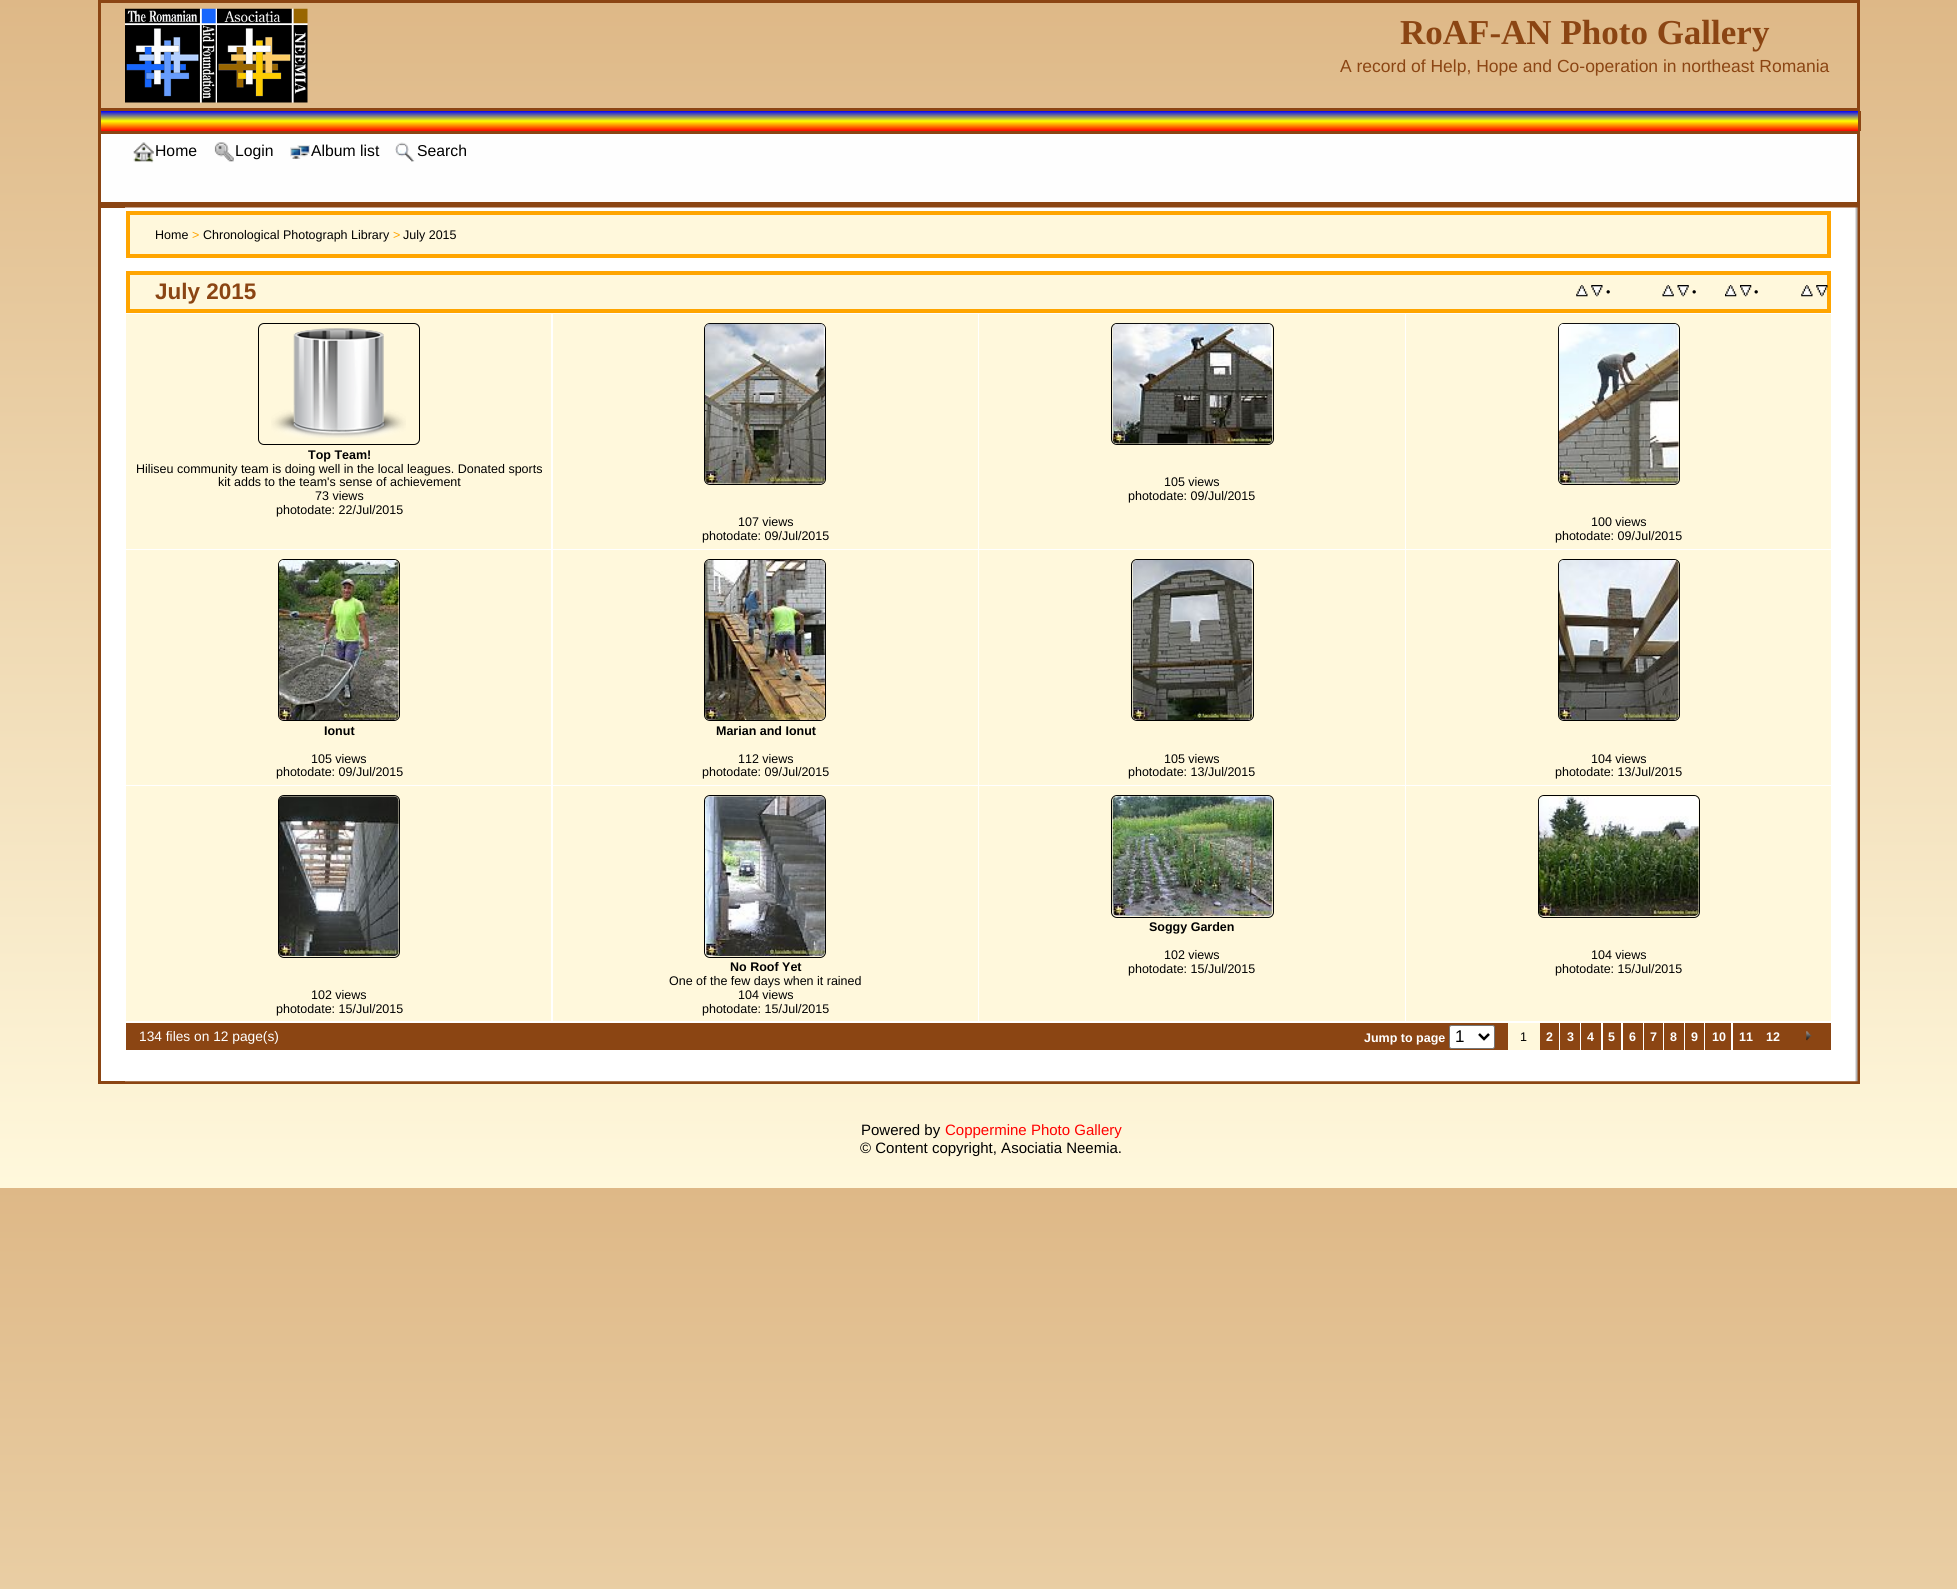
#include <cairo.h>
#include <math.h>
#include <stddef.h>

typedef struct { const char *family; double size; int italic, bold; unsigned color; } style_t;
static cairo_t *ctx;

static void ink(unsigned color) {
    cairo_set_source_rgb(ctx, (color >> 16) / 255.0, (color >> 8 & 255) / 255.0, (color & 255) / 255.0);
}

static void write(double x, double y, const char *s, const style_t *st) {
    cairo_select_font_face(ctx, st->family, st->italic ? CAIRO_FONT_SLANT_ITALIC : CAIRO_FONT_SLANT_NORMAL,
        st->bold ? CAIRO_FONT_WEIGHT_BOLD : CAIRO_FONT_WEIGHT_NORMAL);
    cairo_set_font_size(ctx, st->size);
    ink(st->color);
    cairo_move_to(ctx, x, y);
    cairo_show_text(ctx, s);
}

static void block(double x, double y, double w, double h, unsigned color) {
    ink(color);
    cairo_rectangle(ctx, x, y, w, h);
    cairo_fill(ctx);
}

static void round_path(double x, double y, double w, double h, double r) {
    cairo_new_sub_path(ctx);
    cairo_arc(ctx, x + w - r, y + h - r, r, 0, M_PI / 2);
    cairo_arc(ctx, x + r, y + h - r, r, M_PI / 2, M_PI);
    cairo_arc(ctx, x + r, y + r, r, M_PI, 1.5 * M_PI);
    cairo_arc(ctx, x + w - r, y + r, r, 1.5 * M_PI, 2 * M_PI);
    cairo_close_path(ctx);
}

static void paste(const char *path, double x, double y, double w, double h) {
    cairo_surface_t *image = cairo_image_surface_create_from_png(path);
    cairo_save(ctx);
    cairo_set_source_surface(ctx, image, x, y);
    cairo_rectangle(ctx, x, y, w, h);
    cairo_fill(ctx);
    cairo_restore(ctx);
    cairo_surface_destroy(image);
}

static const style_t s1 = {"Liberation Serif", 35, 0, 1, 0x8b4513};
static const style_t s2 = {"Liberation Sans", 17.5, 0, 0, 0x8b4513};
static const style_t s3 = {"Liberation Sans", 15.75, 0, 0, 0x000000};
static const style_t s4 = {"Liberation Sans", 12.5, 0, 0, 0x000000};
static const style_t s5 = {"Liberation Sans", 12.5, 0, 0, 0xffa500};
static const style_t s6 = {"Liberation Sans", 22.5, 0, 1, 0x8b4513};
static const style_t s7 = {"Liberation Sans", 12.5, 0, 1, 0x000000};
static const style_t s8 = {"Liberation Sans", 13.75, 0, 0, 0xffffff};
static const style_t s9 = {"Liberation Sans", 12.5, 0, 1, 0xffffff};
static const style_t s10 = {"Liberation Sans", 17, 0, 0, 0x000000};
static const style_t s11 = {"Liberation Sans", 15, 0, 0, 0x000000};
static const style_t s12 = {"Liberation Sans", 15, 0, 0, 0xff0000};

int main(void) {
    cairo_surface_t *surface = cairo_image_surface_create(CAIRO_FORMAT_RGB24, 1957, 1589);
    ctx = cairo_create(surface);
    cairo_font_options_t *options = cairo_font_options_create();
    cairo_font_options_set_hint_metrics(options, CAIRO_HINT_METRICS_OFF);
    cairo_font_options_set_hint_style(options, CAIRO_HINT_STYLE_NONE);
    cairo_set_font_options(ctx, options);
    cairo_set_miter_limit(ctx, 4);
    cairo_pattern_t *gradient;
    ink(0xffffff);
    cairo_paint(ctx);
    gradient = cairo_pattern_create_linear(979, 1188, 979, 0);
    cairo_pattern_add_color_stop_rgba(gradient, 0, 1, 0.973, 0.863, 1);
    cairo_pattern_add_color_stop_rgba(gradient, 1, 0.871, 0.722, 0.529, 1);
    cairo_set_source(ctx, gradient);
    cairo_pattern_destroy(gradient);
    cairo_rectangle(ctx, 0, 0, 1957, 1188);
    cairo_fill(ctx);
    gradient = cairo_pattern_create_linear(979, 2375, 979, 1188);
    cairo_pattern_add_color_stop_rgba(gradient, 0, 1, 0.973, 0.863, 1);
    cairo_pattern_add_color_stop_rgba(gradient, 1, 0.871, 0.722, 0.529, 1);
    cairo_set_source(ctx, gradient);
    cairo_pattern_destroy(gradient);
    cairo_rectangle(ctx, 0, 1188, 1957, 401);
    cairo_fill(ctx);
    cairo_rectangle(ctx, 99.5, 1.5, 1759, 108);
    ink(0x8b4513);
    cairo_set_line_width(ctx, 3);
    cairo_stroke(ctx);
    paste("pic1.png", 125, 8, 183, 95);
    write(1400, 44, "RoAF-AN Photo Gallery", &s1);
    write(1340, 72, "A record of Help, Hope and Co-operation in northeast Romania", &s2);
    gradient = cairo_pattern_create_linear(979, 111, 979, 131);
    cairo_pattern_add_color_stop_rgba(gradient, 0, 0, 0, 1, 1);
    cairo_pattern_add_color_stop_rgba(gradient, 0.5, 1, 1, 0, 1);
    cairo_pattern_add_color_stop_rgba(gradient, 1, 1, 0, 0, 1);
    cairo_set_source(ctx, gradient);
    cairo_pattern_destroy(gradient);
    cairo_rectangle(ctx, 101, 111, 1757, 20);
    cairo_fill(ctx);
    block(1858, 111, 3, 20, 0x8b4513);
    block(98, 111, 3, 20, 0x8b4513);
    ink(0xfefefe);
    cairo_rectangle(ctx, 99.5, 132.5, 1759, 71);
    cairo_fill_preserve(ctx);
    ink(0x8b4513);
    cairo_stroke(ctx);
    paste("pic2.png", 133, 142, 21, 21);
    write(155, 156, "Home", &s3);
    paste("pic3.png", 214, 142, 20, 20);
    write(235, 156, "Login", &s3);
    paste("pic4.png", 290, 145, 20, 14);
    write(311, 156, "Album list", &s3);
    paste("pic5.png", 395, 142, 20, 20);
    write(417, 156, "Search", &s3);
    block(101, 208, 24, 873, 0xffffff);
    cairo_rectangle(ctx, 99.5, 206.5, 1759, 876);
    ink(0x8b4513);
    cairo_stroke(ctx);
    paste("pic6.png", 125, 207, 1733, 875);
    ink(0xfff8dc);
    cairo_rectangle(ctx, 128, 213, 1701, 43);
    cairo_fill_preserve(ctx);
    ink(0xffa500);
    cairo_set_line_width(ctx, 4);
    cairo_stroke(ctx);
    write(155, 239, "Home", &s4);
    write(192, 239, ">", &s5);
    write(203, 239, "Chronological Photograph Library", &s4);
    write(393, 239, ">", &s5);
    write(403, 239, "July 2015", &s4);
    ink(0xfff8dc);
    cairo_rectangle(ctx, 128, 273, 1701, 38);
    cairo_fill_preserve(ctx);
    ink(0xffa500);
    cairo_stroke(ctx);
    write(155, 299, "July 2015", &s6);
    paste("pic7.png", 1576, 285, 12, 12);
    paste("pic8.png", 1591, 285, 12, 12);
    write(1606, 296, "•", &s4);
    paste("pic9.png", 1662, 285, 12, 12);
    paste("pic10.png", 1677, 285, 12, 12);
    write(1692, 296, "•", &s4);
    paste("pic11.png", 1725, 285, 12, 12);
    paste("pic12.png", 1740, 285, 12, 12);
    write(1754, 296, "•", &s4);
    paste("pic7.png", 1801, 285, 12, 12);
    paste("pic13.png", 1816, 285, 12, 12);
    block(126, 314, 425, 235, 0xfff8dc);
    round_path(258.5, 323.5, 161, 121, 5.5);
    ink(0x000000);
    cairo_set_line_width(ctx, 1);
    cairo_stroke(ctx);
    paste("pic14.png", 271, 328, 135, 110);
    write(308, 459, "Top Team!", &s7);
    write(136, 473, "Hiliseu community team is doing well in the local leagues. Donated sports", &s4);
    write(218, 486, "kit adds to the team's sense of achievement", &s4);
    write(315, 500, "73 views", &s4);
    write(276, 514, "photodate: 22/Jul/2015", &s4);
    block(979, 314, 426, 235, 0xfff8dc);
    round_path(1111.5, 323.5, 162, 121, 5.5);
    ink(0x000000);
    cairo_stroke(ctx);
    paste("pic15.png", 1112, 323, 161, 121);
    write(1164, 486, "105 views", &s4);
    write(1128, 500, "photodate: 09/Jul/2015", &s4);
    block(553, 314, 425, 235, 0xfff8dc);
    round_path(704.5, 323.5, 121, 161, 5.5);
    ink(0x000000);
    cairo_stroke(ctx);
    paste("pic16.png", 705, 323, 120, 161);
    write(738, 526, "107 views", &s4);
    write(702, 540, "photodate: 09/Jul/2015", &s4);
    block(1406, 314, 425, 235, 0xfff8dc);
    round_path(1558.5, 323.5, 121, 161, 5.5);
    ink(0x000000);
    cairo_stroke(ctx);
    paste("pic17.png", 1558, 323, 121, 161);
    write(1591, 526, "100 views", &s4);
    write(1555, 540, "photodate: 09/Jul/2015", &s4);
    block(126, 550, 425, 235, 0xfff8dc);
    round_path(278.5, 559.5, 121, 161, 5.5);
    ink(0x000000);
    cairo_stroke(ctx);
    paste("pic18.png", 278, 560, 121, 160);
    write(324, 735, "Ionut", &s7);
    write(311, 763, "105 views", &s4);
    write(276, 776, "photodate: 09/Jul/2015", &s4);
    block(553, 550, 425, 235, 0xfff8dc);
    round_path(704.5, 559.5, 121, 161, 5.5);
    ink(0x000000);
    cairo_stroke(ctx);
    paste("pic19.png", 705, 560, 120, 160);
    write(716, 735, "Marian and Ionut", &s7);
    write(738, 763, "112 views", &s4);
    write(702, 776, "photodate: 09/Jul/2015", &s4);
    block(979, 550, 426, 235, 0xfff8dc);
    round_path(1131.5, 559.5, 122, 161, 5.5);
    ink(0x000000);
    cairo_stroke(ctx);
    paste("pic20.png", 1132, 560, 121, 160);
    write(1164, 763, "105 views", &s4);
    write(1128, 776, "photodate: 13/Jul/2015", &s4);
    block(1406, 550, 425, 235, 0xfff8dc);
    round_path(1558.5, 559.5, 121, 161, 5.5);
    ink(0x000000);
    cairo_stroke(ctx);
    paste("pic21.png", 1558, 560, 121, 160);
    write(1591, 763, "104 views", &s4);
    write(1555, 776, "photodate: 13/Jul/2015", &s4);
    block(126, 786, 425, 235, 0xfff8dc);
    round_path(278.5, 795.5, 121, 162, 5.5);
    ink(0x000000);
    cairo_stroke(ctx);
    paste("pic22.png", 278, 796, 121, 161);
    write(311, 999, "102 views", &s4);
    write(276, 1013, "photodate: 15/Jul/2015", &s4);
    block(553, 786, 425, 235, 0xfff8dc);
    round_path(704.5, 795.5, 121, 162, 5.5);
    ink(0x000000);
    cairo_stroke(ctx);
    paste("pic23.png", 705, 796, 120, 161);
    write(730, 971, "No Roof Yet", &s7);
    write(669, 985, "One of the few days when it rained", &s4);
    write(738, 999, "104 views", &s4);
    write(702, 1013, "photodate: 15/Jul/2015", &s4);
    block(979, 786, 426, 235, 0xfff8dc);
    round_path(1111.5, 795.5, 162, 122, 5.5);
    ink(0x000000);
    cairo_stroke(ctx);
    paste("pic24.png", 1112, 796, 161, 121);
    write(1149, 931, "Soggy Garden", &s7);
    write(1164, 959, "102 views", &s4);
    write(1128, 973, "photodate: 15/Jul/2015", &s4);
    block(1406, 786, 425, 235, 0xfff8dc);
    round_path(1538.5, 795.5, 161, 122, 5.5);
    ink(0x000000);
    cairo_stroke(ctx);
    paste("pic25.png", 1538, 796, 161, 121);
    write(1591, 959, "104 views", &s4);
    write(1555, 973, "photodate: 15/Jul/2015", &s4);
    block(126, 1023, 1382, 27, 0x8b4513);
    write(139, 1041, "134 files on 12 page(s)", &s8);
    write(1364, 1042, "Jump to page", &s9);
    round_path(1449.5, 1025.5, 45, 23, 2);
    cairo_fill_preserve(ctx);
    ink(0x767676);
    cairo_stroke(ctx);
    cairo_new_path(ctx);
    cairo_move_to(ctx, 1479, 1034);
    cairo_line_to(ctx, 1484, 1039);
    cairo_line_to(ctx, 1489, 1034);
    ink(0x000000);
    cairo_set_line_width(ctx, 2.5);
    cairo_stroke(ctx);
    write(1455, 1042, "1", &s10);
    block(1508, 1023, 32, 27, 0xfff8dc);
    write(1520, 1041, "1", &s4);
    block(1540, 1023, 19, 27, 0x8b4513);
    write(1546, 1041, "2", &s9);
    block(1560, 1023, 20, 27, 0x8b4513);
    write(1567, 1041, "3", &s9);
    block(1581, 1023, 20, 27, 0x8b4513);
    write(1587, 1041, "4", &s9);
    block(1603, 1023, 18, 27, 0x8b4513);
    write(1608, 1041, "5", &s9);
    block(1623, 1023, 20, 27, 0x8b4513);
    write(1629, 1041, "6", &s9);
    block(1644, 1023, 19, 27, 0x8b4513);
    write(1650, 1041, "7", &s9);
    block(1664, 1023, 20, 27, 0x8b4513);
    write(1670, 1041, "8", &s9);
    block(1685, 1023, 19, 27, 0x8b4513);
    write(1691, 1041, "9", &s9);
    block(1705, 1023, 26, 27, 0x8b4513);
    write(1712, 1041, "10", &s9);
    block(1733, 1023, 98, 27, 0x8b4513);
    write(1739, 1041, "11", &s9);
    write(1766, 1041, "12", &s9);
    paste("pic26.png", 1806, 1031, 6, 10);
    write(861, 1135, "Powered by", &s11);
    write(945, 1135, "Coppermine Photo Gallery", &s12);
    write(860, 1153, "© Content copyright, Asociatia Neemia.", &s11);
    cairo_surface_write_to_png(surface, "screenshot.png");
    cairo_font_options_destroy(options);
    cairo_destroy(ctx);
    cairo_surface_destroy(surface);
    return 0;
}
